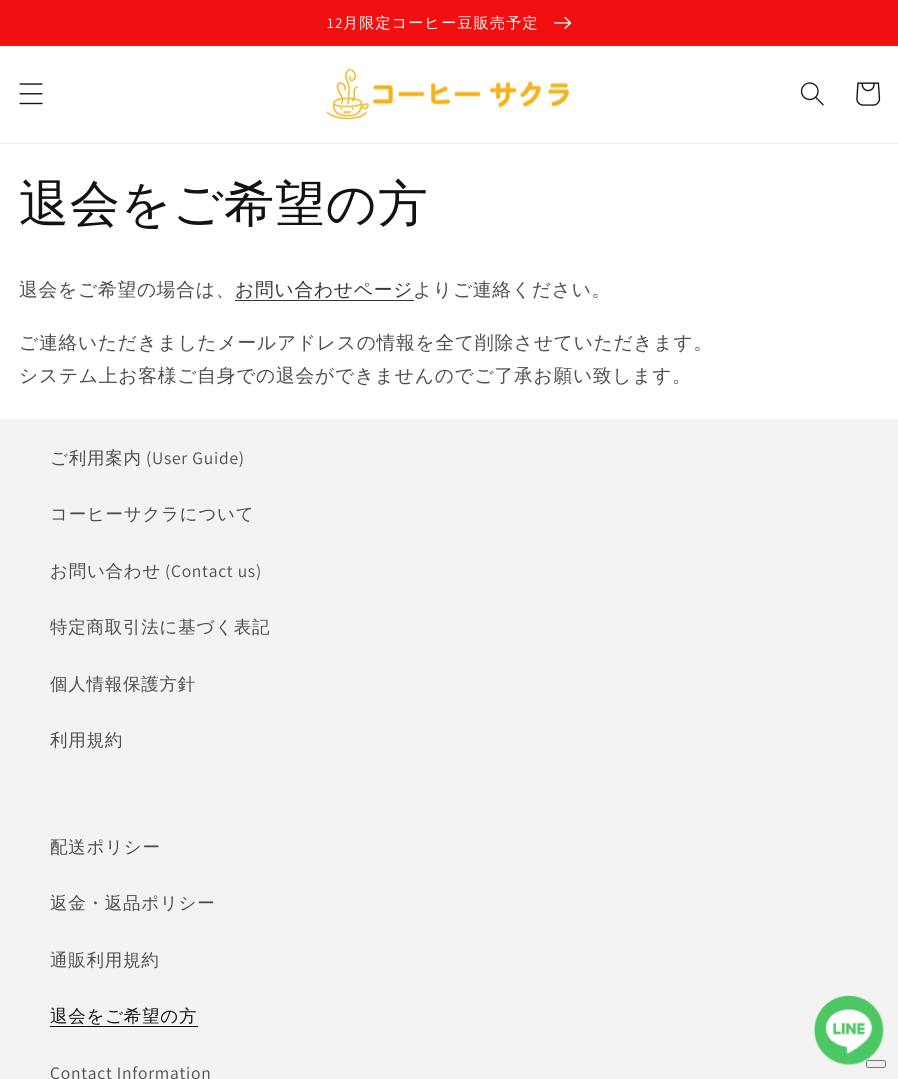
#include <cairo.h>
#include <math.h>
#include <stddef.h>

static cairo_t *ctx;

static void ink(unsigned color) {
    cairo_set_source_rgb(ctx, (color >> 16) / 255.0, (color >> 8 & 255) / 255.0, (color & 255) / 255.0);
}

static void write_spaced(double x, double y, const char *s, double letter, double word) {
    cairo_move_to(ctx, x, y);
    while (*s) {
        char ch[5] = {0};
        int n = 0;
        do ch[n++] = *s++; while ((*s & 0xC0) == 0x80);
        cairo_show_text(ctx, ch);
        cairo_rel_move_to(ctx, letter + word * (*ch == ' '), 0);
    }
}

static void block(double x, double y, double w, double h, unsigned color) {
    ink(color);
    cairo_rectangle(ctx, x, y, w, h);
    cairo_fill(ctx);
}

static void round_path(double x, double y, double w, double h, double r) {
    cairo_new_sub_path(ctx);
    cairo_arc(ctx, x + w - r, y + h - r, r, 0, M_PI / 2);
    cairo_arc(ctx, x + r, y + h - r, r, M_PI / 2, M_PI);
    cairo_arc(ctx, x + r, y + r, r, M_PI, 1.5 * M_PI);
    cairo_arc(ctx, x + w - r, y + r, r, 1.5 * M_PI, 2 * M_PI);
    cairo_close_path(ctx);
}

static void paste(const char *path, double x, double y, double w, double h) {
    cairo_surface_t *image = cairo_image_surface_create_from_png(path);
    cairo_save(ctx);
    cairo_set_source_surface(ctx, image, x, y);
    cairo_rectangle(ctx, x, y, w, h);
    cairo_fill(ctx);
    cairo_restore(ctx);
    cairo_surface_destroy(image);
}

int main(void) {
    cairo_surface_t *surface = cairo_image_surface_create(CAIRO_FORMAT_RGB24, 898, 1079);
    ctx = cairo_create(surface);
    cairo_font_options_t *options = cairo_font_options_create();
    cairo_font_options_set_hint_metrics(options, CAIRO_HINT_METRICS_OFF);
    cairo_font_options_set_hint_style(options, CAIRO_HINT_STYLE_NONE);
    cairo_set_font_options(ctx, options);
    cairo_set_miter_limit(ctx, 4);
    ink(0xffffff);
    cairo_paint(ctx);
    block(0, 45, 898, 1, 0xf11414);
    block(0, 0, 898, 45, 0xf10f0f);
    cairo_select_font_face(ctx, "Assistant", CAIRO_FONT_SLANT_NORMAL, CAIRO_FONT_WEIGHT_NORMAL);
    cairo_set_font_size(ctx, 15);
    ink(0xffffff);
    write_spaced(327, 28, "12", 1.25, 0);
    cairo_select_font_face(ctx, "WenQuanYi Zen Hei Medium", CAIRO_FONT_SLANT_NORMAL, CAIRO_FONT_WEIGHT_NORMAL);
    write_spaced(343, 28, "月限定コーヒー豆販売予定", 1.25, 0);
    paste("pic1.png", 554, 16, 18, 13);
    block(0, 143, 898, 1, 0xececec);
    paste("pic2.png", 19, 83, 24, 22);
    paste("pic3.png", 326, 68, 244, 52);
    paste("pic4.png", 800, 82, 24, 24);
    paste("pic5.png", 856, 82, 25, 24);
    cairo_set_font_size(ctx, 50);
    ink(0x121212);
    write_spaced(19, 221, "退会をご希望の方", 0.75, 0);
    cairo_set_font_size(ctx, 18.75);
    ink(0x4d4d4d);
    write_spaced(19, 296, "退会をご希望の場合は、", 0.75, 0);
    ink(0x363636);
    write_spaced(235, 296, "お問い合わせページ", 0.75, 0);
    block(235, 300, 179, 1, 0x363636);
    ink(0x4d4d4d);
    write_spaced(413, 296, "よりご連絡ください。", 0.75, 0);
    write_spaced(19, 349, "ご連絡いただきましたメールアドレスの情報を全て削除させていただきます。", 0.75, 0);
    write_spaced(19, 382, "システム上お客様ご自身での退会ができませんのでご了承お願い致します。", 0.75, 0);
    block(0, 419, 898, 660, 0xf3f3f3);
    cairo_set_font_size(ctx, 17.5);
    ink(0x4d4d4d);
    write_spaced(50, 464, "ご利用案内", 0.75, 0);
    cairo_select_font_face(ctx, "Assistant", CAIRO_FONT_SLANT_NORMAL, CAIRO_FONT_WEIGHT_NORMAL);
    write_spaced(146, 464, "(User Guide)", 0.75, 0);
    cairo_select_font_face(ctx, "WenQuanYi Zen Hei Medium", CAIRO_FONT_SLANT_NORMAL, CAIRO_FONT_WEIGHT_NORMAL);
    write_spaced(50, 520, "コーヒーサクラについて", 0.75, 0);
    write_spaced(50, 577, "お問い合わせ", 0.75, 0);
    cairo_select_font_face(ctx, "Assistant", CAIRO_FONT_SLANT_NORMAL, CAIRO_FONT_WEIGHT_NORMAL);
    write_spaced(165, 577, "(Contact us)", 0.75, 0);
    cairo_select_font_face(ctx, "WenQuanYi Zen Hei Medium", CAIRO_FONT_SLANT_NORMAL, CAIRO_FONT_WEIGHT_NORMAL);
    write_spaced(50, 633, "特定商取引法に基づく表記", 0.75, 0);
    write_spaced(50, 690, "個人情報保護方針", 0.75, 0);
    write_spaced(50, 746, "利用規約", 0.75, 0);
    write_spaced(50, 853, "配送ポリシー", 0.75, 0);
    write_spaced(50, 909, "返金・返品ポリシー", 0.75, 0);
    write_spaced(50, 966, "通販利用規約", 0.75, 0);
    ink(0x121212);
    write_spaced(50, 1022, "退会をご希望の方", 0.75, 0);
    block(50, 1026, 148, 1, 0x121212);
    cairo_select_font_face(ctx, "Assistant", CAIRO_FONT_SLANT_NORMAL, CAIRO_FONT_WEIGHT_NORMAL);
    ink(0x4d4d4d);
    write_spaced(50, 1079, "Contact Information", 0.75, 0);
    ink(0xefefef);
    round_path(866.5, 1060.5, 19, 7, 2);
    cairo_fill_preserve(ctx);
    ink(0x767676);
    cairo_set_line_width(ctx, 1);
    cairo_stroke(ctx);
    paste("pic6.png", 814, 995, 70, 71);
    cairo_surface_write_to_png(surface, "screenshot.png");
    cairo_font_options_destroy(options);
    cairo_destroy(ctx);
    cairo_surface_destroy(surface);
    return 0;
}
